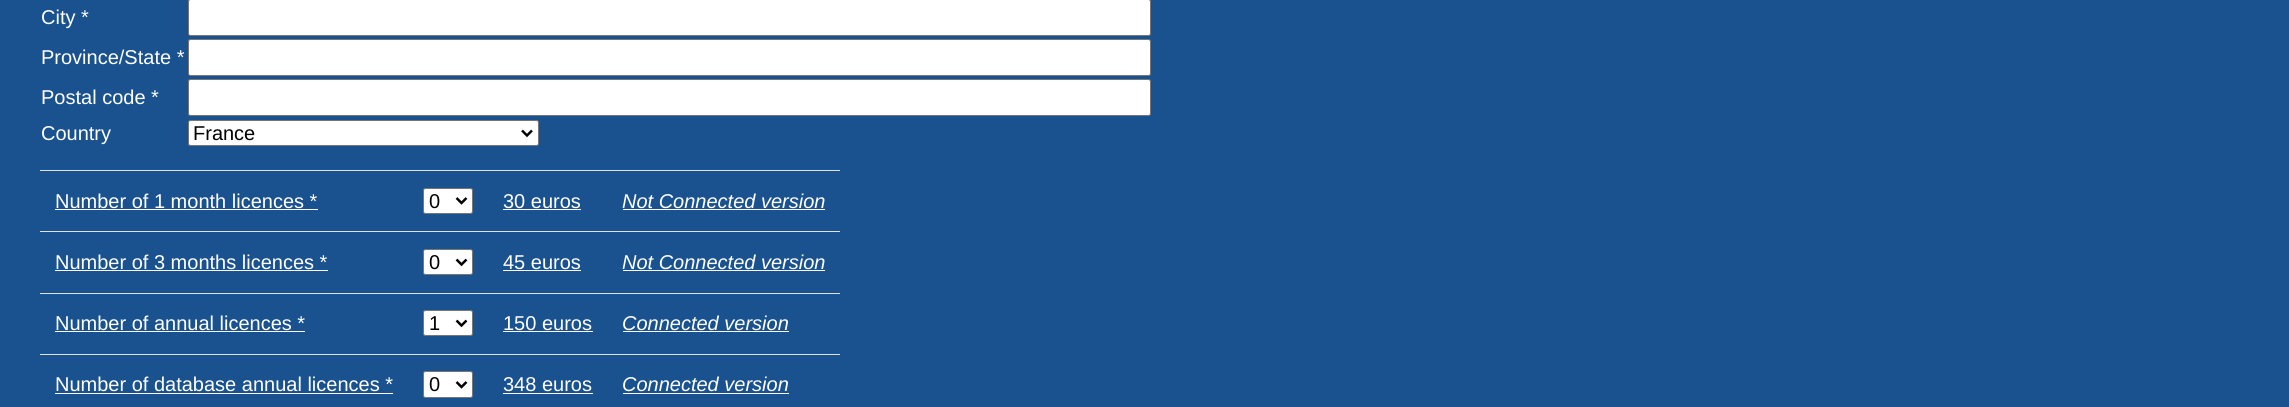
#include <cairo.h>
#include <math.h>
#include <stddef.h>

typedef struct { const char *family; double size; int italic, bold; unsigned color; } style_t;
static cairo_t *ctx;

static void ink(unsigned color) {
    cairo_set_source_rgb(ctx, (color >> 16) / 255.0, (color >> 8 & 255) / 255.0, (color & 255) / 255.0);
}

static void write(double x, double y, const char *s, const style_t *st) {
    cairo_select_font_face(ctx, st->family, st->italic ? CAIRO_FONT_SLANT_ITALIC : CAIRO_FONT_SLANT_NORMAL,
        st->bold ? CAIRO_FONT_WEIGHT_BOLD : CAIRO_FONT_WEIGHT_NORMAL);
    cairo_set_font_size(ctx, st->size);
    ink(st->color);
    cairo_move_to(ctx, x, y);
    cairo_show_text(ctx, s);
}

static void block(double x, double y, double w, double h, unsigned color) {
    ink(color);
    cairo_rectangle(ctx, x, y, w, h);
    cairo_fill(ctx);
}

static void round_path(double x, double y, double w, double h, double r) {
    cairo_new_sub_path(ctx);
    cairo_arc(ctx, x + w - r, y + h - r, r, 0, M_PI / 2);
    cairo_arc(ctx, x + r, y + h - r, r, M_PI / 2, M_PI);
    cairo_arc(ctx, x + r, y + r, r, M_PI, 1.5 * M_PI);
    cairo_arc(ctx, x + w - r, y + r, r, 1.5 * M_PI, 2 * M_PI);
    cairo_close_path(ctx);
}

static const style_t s1 = {"Liberation Sans", 20, 0, 0, 0xffffff};
static const style_t s2 = {"Liberation Sans", 20, 0, 0, 0x000000};
static const style_t s3 = {"Liberation Sans", 20, 1, 0, 0xffffff};

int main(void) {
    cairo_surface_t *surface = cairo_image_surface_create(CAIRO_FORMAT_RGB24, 2289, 407);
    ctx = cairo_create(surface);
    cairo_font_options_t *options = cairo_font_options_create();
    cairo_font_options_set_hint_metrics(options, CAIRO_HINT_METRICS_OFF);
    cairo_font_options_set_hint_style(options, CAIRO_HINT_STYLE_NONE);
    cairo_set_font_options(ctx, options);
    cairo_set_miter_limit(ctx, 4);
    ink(0x1a528f);
    cairo_paint(ctx);
    write(41, 24, "City *", &s1);
    round_path(188.5, -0.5, 962, 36, 2);
    cairo_fill_preserve(ctx);
    ink(0x767676);
    cairo_set_line_width(ctx, 1);
    cairo_stroke(ctx);
    write(41, 64, "Province/State *", &s1);
    round_path(188.5, 39.5, 962, 36, 2);
    cairo_fill_preserve(ctx);
    ink(0x767676);
    cairo_stroke(ctx);
    write(41, 104, "Postal code *", &s1);
    round_path(188.5, 79.5, 962, 36, 2);
    cairo_fill_preserve(ctx);
    ink(0x767676);
    cairo_stroke(ctx);
    write(41, 140, "Country", &s1);
    round_path(188.5, 120.5, 350, 25, 2);
    cairo_fill_preserve(ctx);
    ink(0x767676);
    cairo_stroke(ctx);
    cairo_new_path(ctx);
    cairo_move_to(ctx, 522, 130.5);
    cairo_line_to(ctx, 527, 135.5);
    cairo_line_to(ctx, 532, 130.5);
    ink(0x000000);
    cairo_set_line_width(ctx, 2.5);
    cairo_stroke(ctx);
    write(193, 140, "France", &s2);
    block(40, 170, 800, 1, 0xdee2e6);
    write(55, 208, "Number of 1 month licences *", &s1);
    block(55, 209, 263, 1, 0xfefefe);
    ink(0xffffff);
    round_path(423.5, 188.5, 49, 25, 2);
    cairo_fill_preserve(ctx);
    ink(0x767676);
    cairo_set_line_width(ctx, 1);
    cairo_stroke(ctx);
    cairo_new_path(ctx);
    cairo_move_to(ctx, 456.5, 198);
    cairo_line_to(ctx, 461.5, 203);
    cairo_line_to(ctx, 466.5, 198);
    ink(0x000000);
    cairo_set_line_width(ctx, 2.5);
    cairo_stroke(ctx);
    write(429, 208, "0", &s2);
    write(503, 208, "30 euros", &s1);
    block(503, 209, 78, 1, 0xfefefe);
    write(622, 208, "Not Connected version", &s3);
    block(623, 209, 202, 1, 0xfefefe);
    block(40, 231, 800, 1, 0xdee2e6);
    write(55, 269, "Number of 3 months licences *", &s1);
    block(55, 270, 273, 1, 0xfefefe);
    ink(0xffffff);
    round_path(423.5, 249.5, 49, 25, 2);
    cairo_fill_preserve(ctx);
    ink(0x767676);
    cairo_set_line_width(ctx, 1);
    cairo_stroke(ctx);
    cairo_new_path(ctx);
    cairo_move_to(ctx, 456.5, 259.5);
    cairo_line_to(ctx, 461.5, 264.5);
    cairo_line_to(ctx, 466.5, 259.5);
    ink(0x000000);
    cairo_set_line_width(ctx, 2.5);
    cairo_stroke(ctx);
    write(429, 269, "0", &s2);
    write(503, 269, "45 euros", &s1);
    block(503, 270, 78, 1, 0xfefefe);
    write(622, 269, "Not Connected version", &s3);
    block(623, 270, 202, 1, 0xfefefe);
    block(40, 293, 800, 1, 0xdee2e6);
    write(55, 330, "Number of annual licences *", &s1);
    block(55, 331, 250, 1, 0xfefefe);
    ink(0xffffff);
    round_path(423.5, 310.5, 49, 25, 2);
    cairo_fill_preserve(ctx);
    ink(0x767676);
    cairo_set_line_width(ctx, 1);
    cairo_stroke(ctx);
    cairo_new_path(ctx);
    cairo_move_to(ctx, 456.5, 320.5);
    cairo_line_to(ctx, 461.5, 325.5);
    cairo_line_to(ctx, 466.5, 320.5);
    ink(0x000000);
    cairo_set_line_width(ctx, 2.5);
    cairo_stroke(ctx);
    write(429, 330, "1", &s2);
    write(503, 330, "150 euros", &s1);
    block(503, 331, 90, 1, 0xfefefe);
    write(622, 330, "Connected version", &s3);
    block(623, 331, 166, 1, 0xfefefe);
    block(40, 354, 800, 1, 0xdee2e6);
    write(55, 391, "Number of database annual licences *", &s1);
    block(55, 393, 338, 1, 0xfefefe);
    ink(0xffffff);
    round_path(423.5, 371.5, 49, 26, 2);
    cairo_fill_preserve(ctx);
    ink(0x767676);
    cairo_set_line_width(ctx, 1);
    cairo_stroke(ctx);
    cairo_new_path(ctx);
    cairo_move_to(ctx, 456.5, 382);
    cairo_line_to(ctx, 461.5, 387);
    cairo_line_to(ctx, 466.5, 382);
    ink(0x000000);
    cairo_set_line_width(ctx, 2.5);
    cairo_stroke(ctx);
    write(429, 391, "0", &s2);
    write(503, 391, "348 euros", &s1);
    block(503, 393, 90, 1, 0xfefefe);
    write(622, 391, "Connected version", &s3);
    block(623, 393, 166, 1, 0xfefefe);
    cairo_surface_write_to_png(surface, "screenshot.png");
    cairo_font_options_destroy(options);
    cairo_destroy(ctx);
    cairo_surface_destroy(surface);
    return 0;
}
